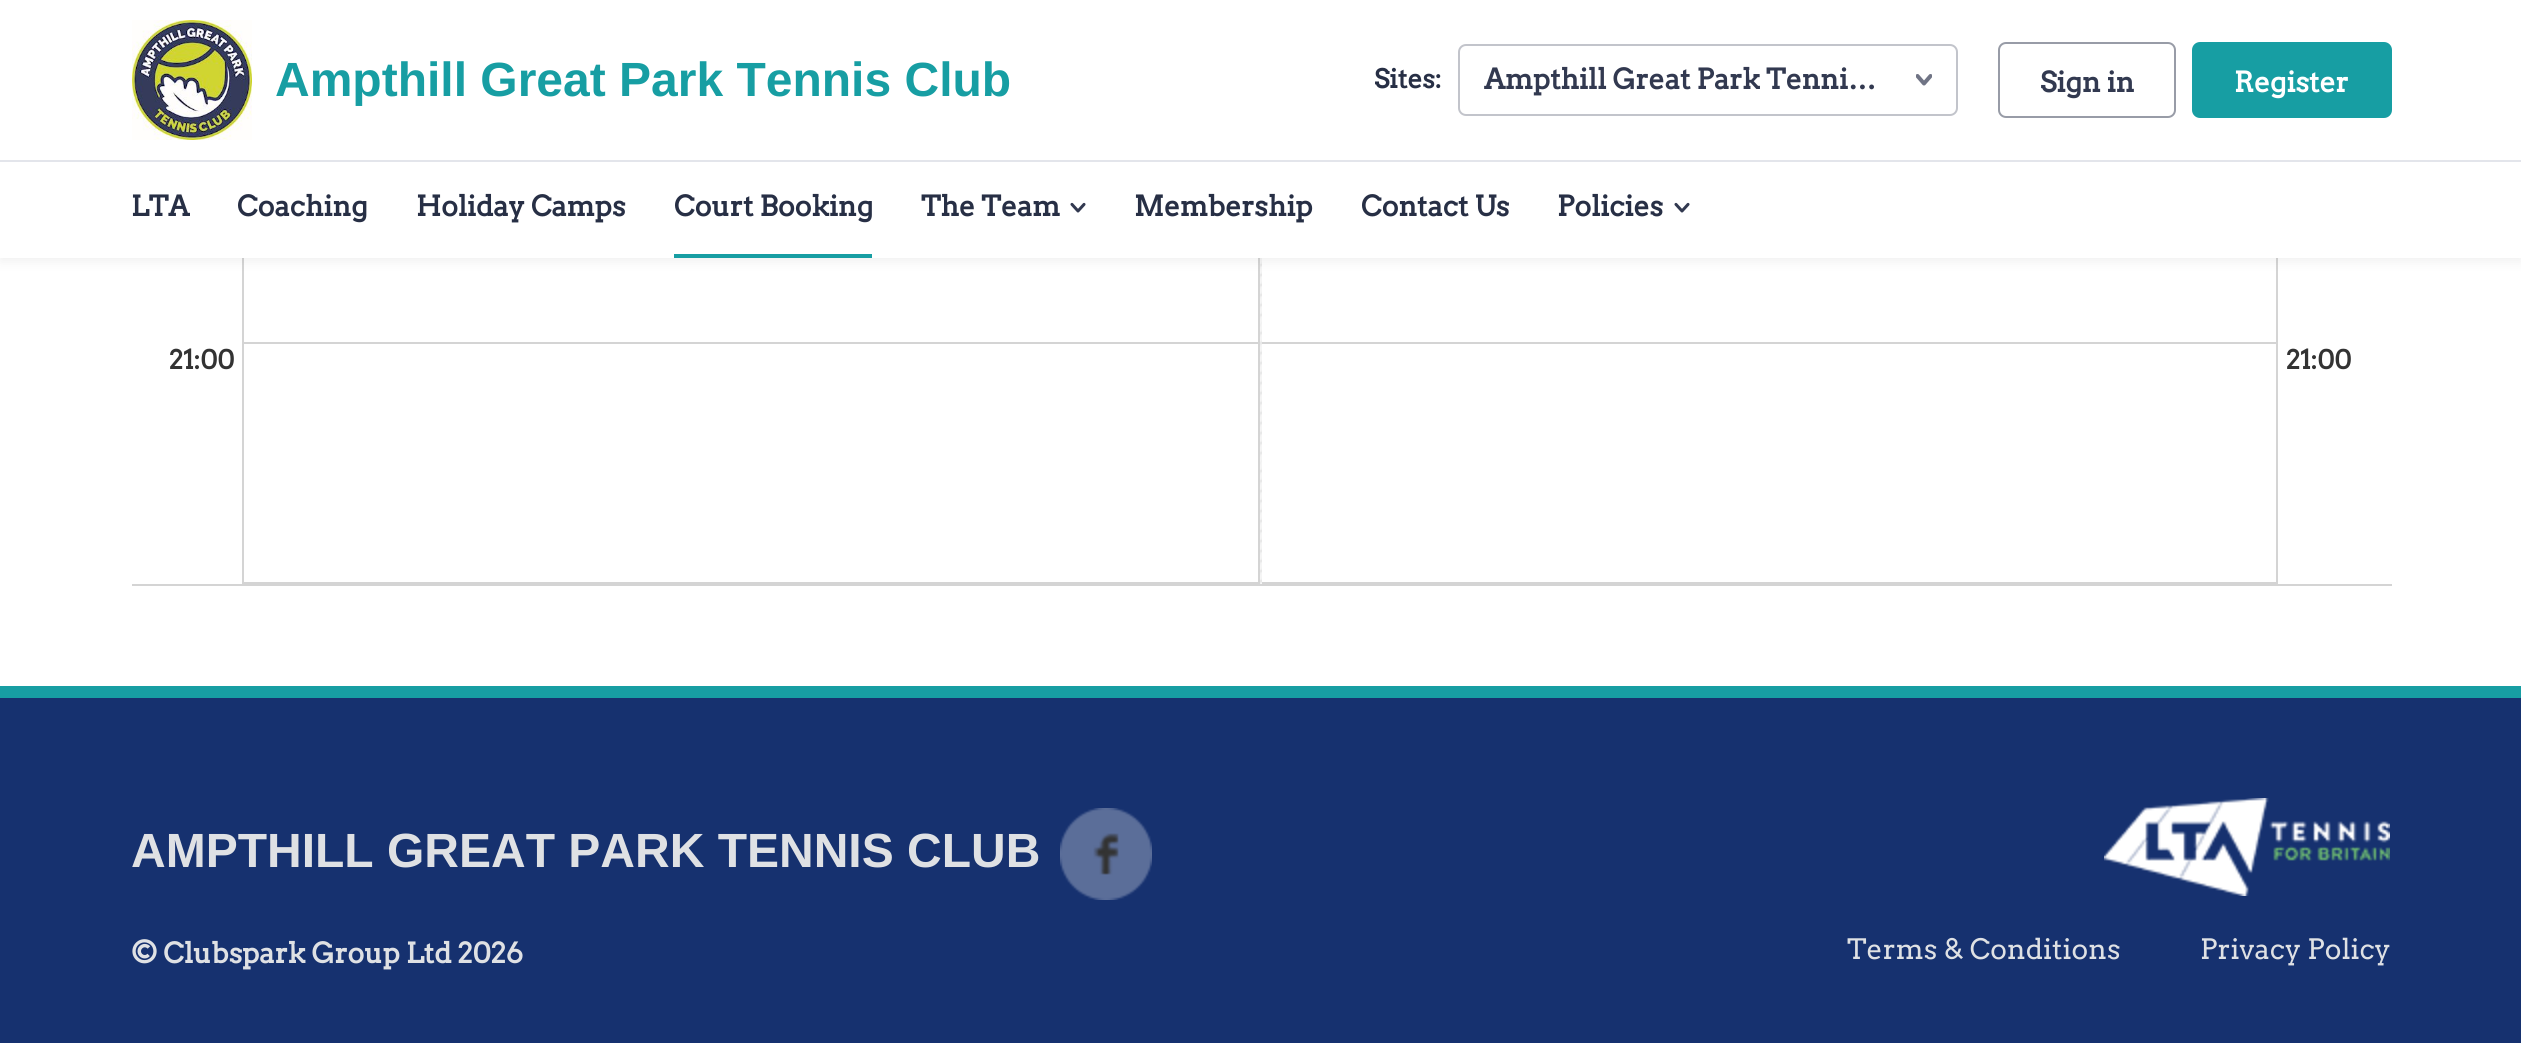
#include <cairo.h>
#include <math.h>
#include <stddef.h>

typedef struct { const char *family; double size; int italic, bold; unsigned color; } style_t;
static cairo_t *ctx;

static void ink(unsigned color) {
    cairo_set_source_rgb(ctx, (color >> 16) / 255.0, (color >> 8 & 255) / 255.0, (color & 255) / 255.0);
}

static void write(double x, double y, const char *s, const style_t *st) {
    cairo_select_font_face(ctx, st->family, st->italic ? CAIRO_FONT_SLANT_ITALIC : CAIRO_FONT_SLANT_NORMAL,
        st->bold ? CAIRO_FONT_WEIGHT_BOLD : CAIRO_FONT_WEIGHT_NORMAL);
    cairo_set_font_size(ctx, st->size);
    ink(st->color);
    cairo_move_to(ctx, x, y);
    cairo_show_text(ctx, s);
}

static void block(double x, double y, double w, double h, unsigned color) {
    ink(color);
    cairo_rectangle(ctx, x, y, w, h);
    cairo_fill(ctx);
}

static void round_path(double x, double y, double w, double h, double r) {
    cairo_new_sub_path(ctx);
    cairo_arc(ctx, x + w - r, y + h - r, r, 0, M_PI / 2);
    cairo_arc(ctx, x + r, y + h - r, r, M_PI / 2, M_PI);
    cairo_arc(ctx, x + r, y + r, r, M_PI, 1.5 * M_PI);
    cairo_arc(ctx, x + w - r, y + r, r, 1.5 * M_PI, 2 * M_PI);
    cairo_close_path(ctx);
}

static void blur_box(double x, double y, double w, double h, double r, double blur, double alpha) {
    cairo_push_group_with_content(ctx, CAIRO_CONTENT_ALPHA);
    cairo_set_operator(ctx, CAIRO_OPERATOR_SOURCE);
    for (int i = 15; i >= -15 && fmin(w, h) + blur * i / 3 > 0; i -= 2) {
        double e = blur * i / 6;
        cairo_set_source_rgba(ctx, 0, 0, 0, alpha * erfc((i - 1) / 8.5) / 2);
        round_path(x - e, y - e, w + 2 * e, h + 2 * e, fmax(0, fmin(r + e + blur * .6, fmin(w, h) / 2 + e)));
        cairo_fill(ctx);
    }
    cairo_pattern_t *soft = cairo_pop_group(ctx);
    cairo_mask(ctx, soft);
    cairo_pattern_destroy(soft);
}

static void paste(const char *path, double x, double y, double w, double h) {
    cairo_surface_t *image = cairo_image_surface_create_from_png(path);
    cairo_save(ctx);
    cairo_set_source_surface(ctx, image, x, y);
    cairo_rectangle(ctx, x, y, w, h);
    cairo_fill(ctx);
    cairo_restore(ctx);
    cairo_surface_destroy(image);
}

static const style_t s1 = {"Liberation Sans", 48, 0, 1, 0x179ea3};
static const style_t s2 = {"Arvo", 26, 0, 1, 0x272f45};
static const style_t s3 = {"Arvo", 28, 0, 1, 0x323950};
static const style_t s4 = {"Arvo", 28, 0, 1, 0xffffff};
static const style_t s5 = {"Arvo", 28, 0, 1, 0x272f45};
static const style_t s6 = {"Arvo", 26, 0, 1, 0x333333};
static const style_t s7 = {"Liberation Sans", 48, 0, 1, 0xdfe1e4};
static const style_t s8 = {"Arvo", 28, 0, 1, 0xdfe1e4};
static const style_t s9 = {"Arvo", 28, 0, 0, 0xdfe1e4};

int main(void) {
    cairo_surface_t *surface = cairo_image_surface_create(CAIRO_FORMAT_RGB24, 2521, 1043);
    ctx = cairo_create(surface);
    cairo_font_options_t *options = cairo_font_options_create();
    cairo_font_options_set_hint_metrics(options, CAIRO_HINT_METRICS_OFF);
    cairo_font_options_set_hint_style(options, CAIRO_HINT_STYLE_NONE);
    cairo_set_font_options(ctx, options);
    cairo_set_miter_limit(ctx, 4);
    ink(0xffffff);
    cairo_paint(ctx);
    block(242, 258, 2, 328, 0xd4d4d4);
    paste("pic3.png", 1260, 258, 2, 326);
    block(1258, 258, 2, 326, 0xd4d4d4);
    block(2276, 258, 2, 326, 0xd4d4d4);
    ink(0x000000);
    blur_box(0, 4, 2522, 258, 0, 6, 0.06);
    block(0, 0, 2521, 258, 0xffffff);
    paste("pic1.png", 132, 20, 120, 120);
    write(275, 96, "Ampthill Great Park Tennis Club", &s1);
    write(1374, 88, "Sites:", &s2);
    round_path(1459, 45, 498, 70, 7);
    ink(0xc2c4cb);
    cairo_stroke(ctx);
    write(1484, 89, "Ampthill Great Park Tenni…", &s3);
    cairo_save(ctx);
    cairo_new_path(ctx);
    cairo_move_to(ctx, 1916, 72);
    cairo_line_to(ctx, 1932, 72);
    cairo_line_to(ctx, 1932, 88);
    cairo_line_to(ctx, 1916, 88);
    cairo_close_path(ctx);
    cairo_clip(ctx);
    cairo_new_path(ctx);
    cairo_move_to(ctx, 1917.5, 76);
    cairo_line_to(ctx, 1924, 83.5);
    cairo_line_to(ctx, 1930.5, 76);
    ink(0x707485);
    cairo_set_line_width(ctx, 4);
    cairo_set_line_cap(ctx, CAIRO_LINE_CAP_ROUND);
    cairo_set_line_join(ctx, CAIRO_LINE_JOIN_ROUND);
    cairo_stroke(ctx);
    cairo_restore(ctx);
    round_path(1999, 43, 176, 74, 7);
    ink(0x989ca7);
    cairo_stroke(ctx);
    write(2040, 92, "Sign in", &s3);
    ink(0x179ea3);
    round_path(2193, 43, 198, 74, 7);
    cairo_fill_preserve(ctx);
    cairo_stroke(ctx);
    write(2234, 92, "Register", &s4);
    block(0, 160, 2521, 2, 0xe3e5eb);
    write(131, 216, "LTA", &s5);
    write(237, 216, "Coaching", &s5);
    write(416, 216, "Holiday Camps", &s5);
    block(674, 254, 198, 4, 0x179ea3);
    write(674, 216, "Court Booking", &s5);
    write(921, 216, "The Team", &s5);
    paste("pic2.png", 1070, 202, 16, 11);
    write(1134, 216, "Membership", &s5);
    write(1361, 216, "Contact Us", &s5);
    write(1557, 216, "Policies", &s5);
    paste("pic2.png", 1674, 202, 16, 11);
    block(132, 584, 2260, 2, 0xd4d4d4);
    write(169, 369, "21:00", &s6);
    block(244, 342, 1014, 2, 0xd4d4d4);
    block(244, 582, 1014, 2, 0xd4d4d4);
    block(1262, 342, 1014, 2, 0xd4d4d4);
    block(1262, 582, 1014, 2, 0xd4d4d4);
    write(2286, 369, "21:00", &s6);
    block(0, 698, 2521, 345, 0x16316f);
    block(0, 686, 2521, 12, 0x179ea3);
    write(131, 867, "AMPTHILL GREAT PARK TENNIS CLUB", &s7);
    paste("pic4.png", 1060, 808, 92, 92);
    paste("pic5.png", 2104, 798, 286, 98);
    write(131, 963, "© Clubspark Group Ltd 2026", &s8);
    write(1847, 959, "Terms & Conditions", &s9);
    write(2200, 959, "Privacy Policy", &s9);
    cairo_surface_write_to_png(surface, "screenshot.png");
    cairo_font_options_destroy(options);
    cairo_destroy(ctx);
    cairo_surface_destroy(surface);
    return 0;
}
